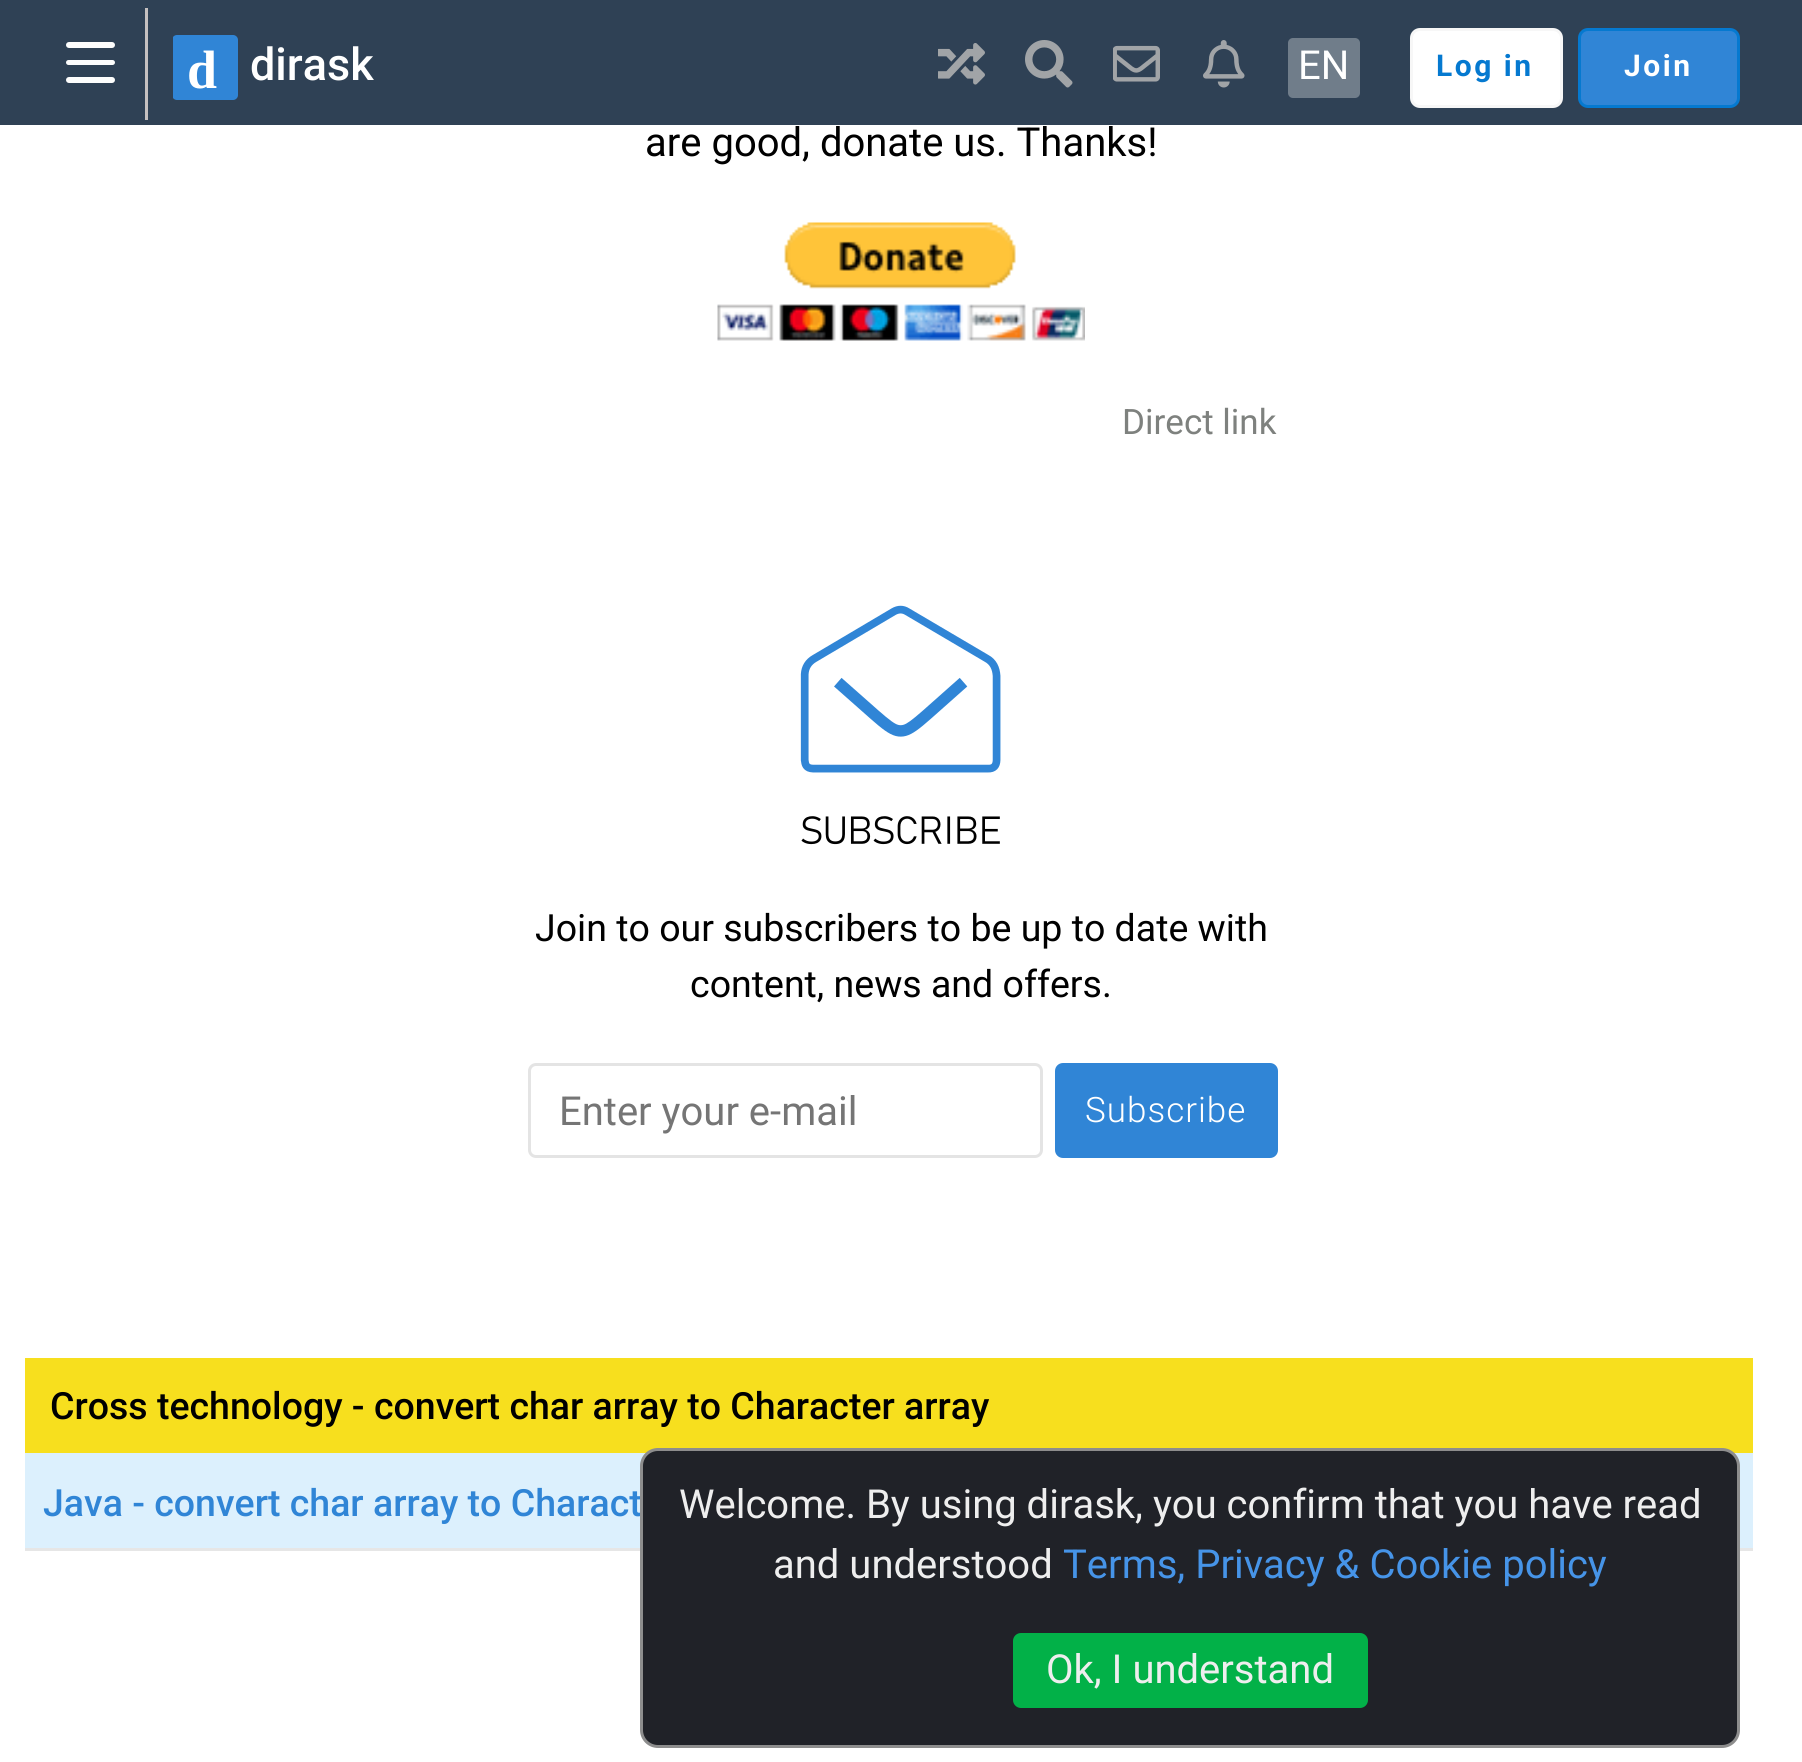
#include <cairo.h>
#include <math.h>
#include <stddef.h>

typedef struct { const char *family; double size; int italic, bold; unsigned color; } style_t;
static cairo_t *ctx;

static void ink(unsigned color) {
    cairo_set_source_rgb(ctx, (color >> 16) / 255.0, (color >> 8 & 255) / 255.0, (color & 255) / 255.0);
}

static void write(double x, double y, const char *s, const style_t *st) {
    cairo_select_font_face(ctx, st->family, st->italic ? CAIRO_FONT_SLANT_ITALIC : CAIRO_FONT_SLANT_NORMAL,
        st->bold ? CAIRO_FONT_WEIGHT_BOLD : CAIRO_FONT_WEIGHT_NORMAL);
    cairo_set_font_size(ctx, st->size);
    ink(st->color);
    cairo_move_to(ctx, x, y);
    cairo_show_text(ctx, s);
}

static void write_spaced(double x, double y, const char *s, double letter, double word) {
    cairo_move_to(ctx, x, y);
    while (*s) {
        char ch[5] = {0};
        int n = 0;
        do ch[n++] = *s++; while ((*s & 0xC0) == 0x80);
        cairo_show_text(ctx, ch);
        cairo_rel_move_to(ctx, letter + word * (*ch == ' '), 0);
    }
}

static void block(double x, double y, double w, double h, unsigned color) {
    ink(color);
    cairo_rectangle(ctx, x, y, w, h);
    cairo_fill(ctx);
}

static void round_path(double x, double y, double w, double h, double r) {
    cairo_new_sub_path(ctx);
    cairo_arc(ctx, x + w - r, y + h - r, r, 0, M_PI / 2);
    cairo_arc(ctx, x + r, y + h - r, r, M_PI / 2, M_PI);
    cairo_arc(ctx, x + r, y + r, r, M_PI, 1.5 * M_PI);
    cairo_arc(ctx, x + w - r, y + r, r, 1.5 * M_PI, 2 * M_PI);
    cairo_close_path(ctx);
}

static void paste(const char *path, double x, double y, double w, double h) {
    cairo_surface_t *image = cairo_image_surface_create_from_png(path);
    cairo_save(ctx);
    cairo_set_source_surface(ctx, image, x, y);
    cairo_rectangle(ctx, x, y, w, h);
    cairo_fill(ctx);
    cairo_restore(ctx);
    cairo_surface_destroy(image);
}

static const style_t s1 = {"Liberation Serif", 54, 0, 1, 0xffffff};
static const style_t s2 = {"Roboto Medium", 45, 0, 0, 0xffffff};
static const style_t s3 = {"Roboto", 40, 0, 0, 0xffffff};
static const style_t s4 = {"Roboto", 40, 0, 0, 0x000000};
static const style_t s5 = {"Roboto", 35, 0, 0, 0x7e817e};
static const style_t s6 = {"Roboto", 37.5, 0, 0, 0x000000};
static const style_t s7 = {"Roboto", 40, 0, 0, 0x757575};
static const style_t s8 = {"Roboto Medium", 37.5, 0, 0, 0x000000};
static const style_t s9 = {"Roboto Medium", 37.5, 0, 0, 0x3085d6};
static const style_t s10 = {"Roboto", 40, 0, 0, 0xeeeeee};
static const style_t s11 = {"Roboto", 40, 0, 0, 0x4694e8};

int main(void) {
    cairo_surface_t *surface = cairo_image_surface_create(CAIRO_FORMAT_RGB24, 1802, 1762);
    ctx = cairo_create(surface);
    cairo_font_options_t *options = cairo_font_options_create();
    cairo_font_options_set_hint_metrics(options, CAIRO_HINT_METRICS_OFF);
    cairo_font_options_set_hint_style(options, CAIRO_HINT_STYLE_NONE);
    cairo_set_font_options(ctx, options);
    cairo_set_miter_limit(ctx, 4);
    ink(0xffffff);
    cairo_paint(ctx);
    block(0, 0, 1802, 125, 0x2f4155);
    block(145, 8, 3, 112, 0xc5c0c0);
    ink(0xfdfdfd);
    round_path(66, 42, 49, 6, 3);
    cairo_fill(ctx);
    round_path(66, 60, 49, 5, 2.5);
    cairo_fill(ctx);
    round_path(66, 77, 49, 6, 3);
    cairo_fill(ctx);
    cairo_save(ctx);
    cairo_rectangle(ctx, 173, 35, 65, 65);
    cairo_clip(ctx);
    ink(0x3085d6);
    round_path(172, 35, 66, 65, 5);
    cairo_fill(ctx);
    cairo_restore(ctx);
    write(187, 88, "d", &s1);
    write(250, 80, "dirask", &s2);
    paste("pic1.png", 938, 43, 47, 42);
    paste("pic2.png", 1025, 40, 48, 48);
    paste("pic3.png", 1113, 45, 47, 37);
    paste("pic4.png", 1203, 40, 42, 48);
    ink(0x707d8a);
    round_path(1288, 38, 72, 60, 5);
    cairo_fill(ctx);
    write(1298, 79, "EN", &s3);
    round_path(1411.5, 29.5, 150, 77, 8.5);
    cairo_fill_preserve(ctx);
    ink(0xf7f7f7);
    cairo_set_line_width(ctx, 3);
    cairo_stroke(ctx);
    cairo_select_font_face(ctx, "Roboto", CAIRO_FONT_SLANT_NORMAL, CAIRO_FONT_WEIGHT_BOLD);
    cairo_set_font_size(ctx, 30);
    ink(0x0579d0);
    write_spaced(1436, 76, "Log in", 2.5, 0);
    ink(0x3085d6);
    round_path(1579.5, 29.5, 159, 77, 8.5);
    cairo_fill_preserve(ctx);
    ink(0x0579d0);
    cairo_stroke(ctx);
    ink(0xffffff);
    write_spaced(1624, 76, "Join", 2.5, 0);
    write(645, 156, "are good, donate us. Thanks!", &s4);
    paste("pic5.png", 717, 222, 368, 119);
    write(1122, 434, "Direct link", &s5);
    paste("pic6.png", 800, 605, 201, 240);
    write(535, 941, "Join to our subscribers to be up to date with", &s6);
    write(690, 997, "content, news and offers.", &s6);
    round_path(529.5, 1064.5, 512, 92, 6.5);
    ink(0xe4e4e4);
    cairo_stroke(ctx);
    write(559, 1125, "Enter your e-mail", &s7);
    ink(0x3085d6);
    round_path(1055, 1063, 223, 95, 8);
    cairo_fill(ctx);
    cairo_select_font_face(ctx, "Roboto Light", CAIRO_FONT_SLANT_NORMAL, CAIRO_FONT_WEIGHT_NORMAL);
    cairo_set_font_size(ctx, 35);
    ink(0xffffff);
    write_spaced(1085, 1122, "Subscribe", 1, 0);
    block(25, 1358, 1728, 95, 0xf7df1e);
    write(50, 1419, "Cross technology - convert char array to Character array", &s8);
    block(25, 1453, 1728, 95, 0xdcf0fd);
    block(25, 1548, 1728, 3, 0xe6e6e6);
    write(43, 1516, "Java - convert char array to Charact", &s9);
    ink(0x202228);
    round_path(641.5, 1449.5, 1097, 297, 16.5);
    cairo_fill_preserve(ctx);
    ink(0x8d8d8d);
    cairo_stroke(ctx);
    write(679, 1518, "Welcome. By using dirask, you confirm that you have read", &s10);
    write(773, 1578, "and understood", &s10);
    write(1063, 1578, "Terms, Privacy & Cookie policy", &s11);
    ink(0x02b148);
    round_path(1013, 1633, 355, 75, 8);
    cairo_fill(ctx);
    write(1046, 1683, "Ok, I understand", &s10);
    cairo_surface_write_to_png(surface, "screenshot.png");
    cairo_font_options_destroy(options);
    cairo_destroy(ctx);
    cairo_surface_destroy(surface);
    return 0;
}
